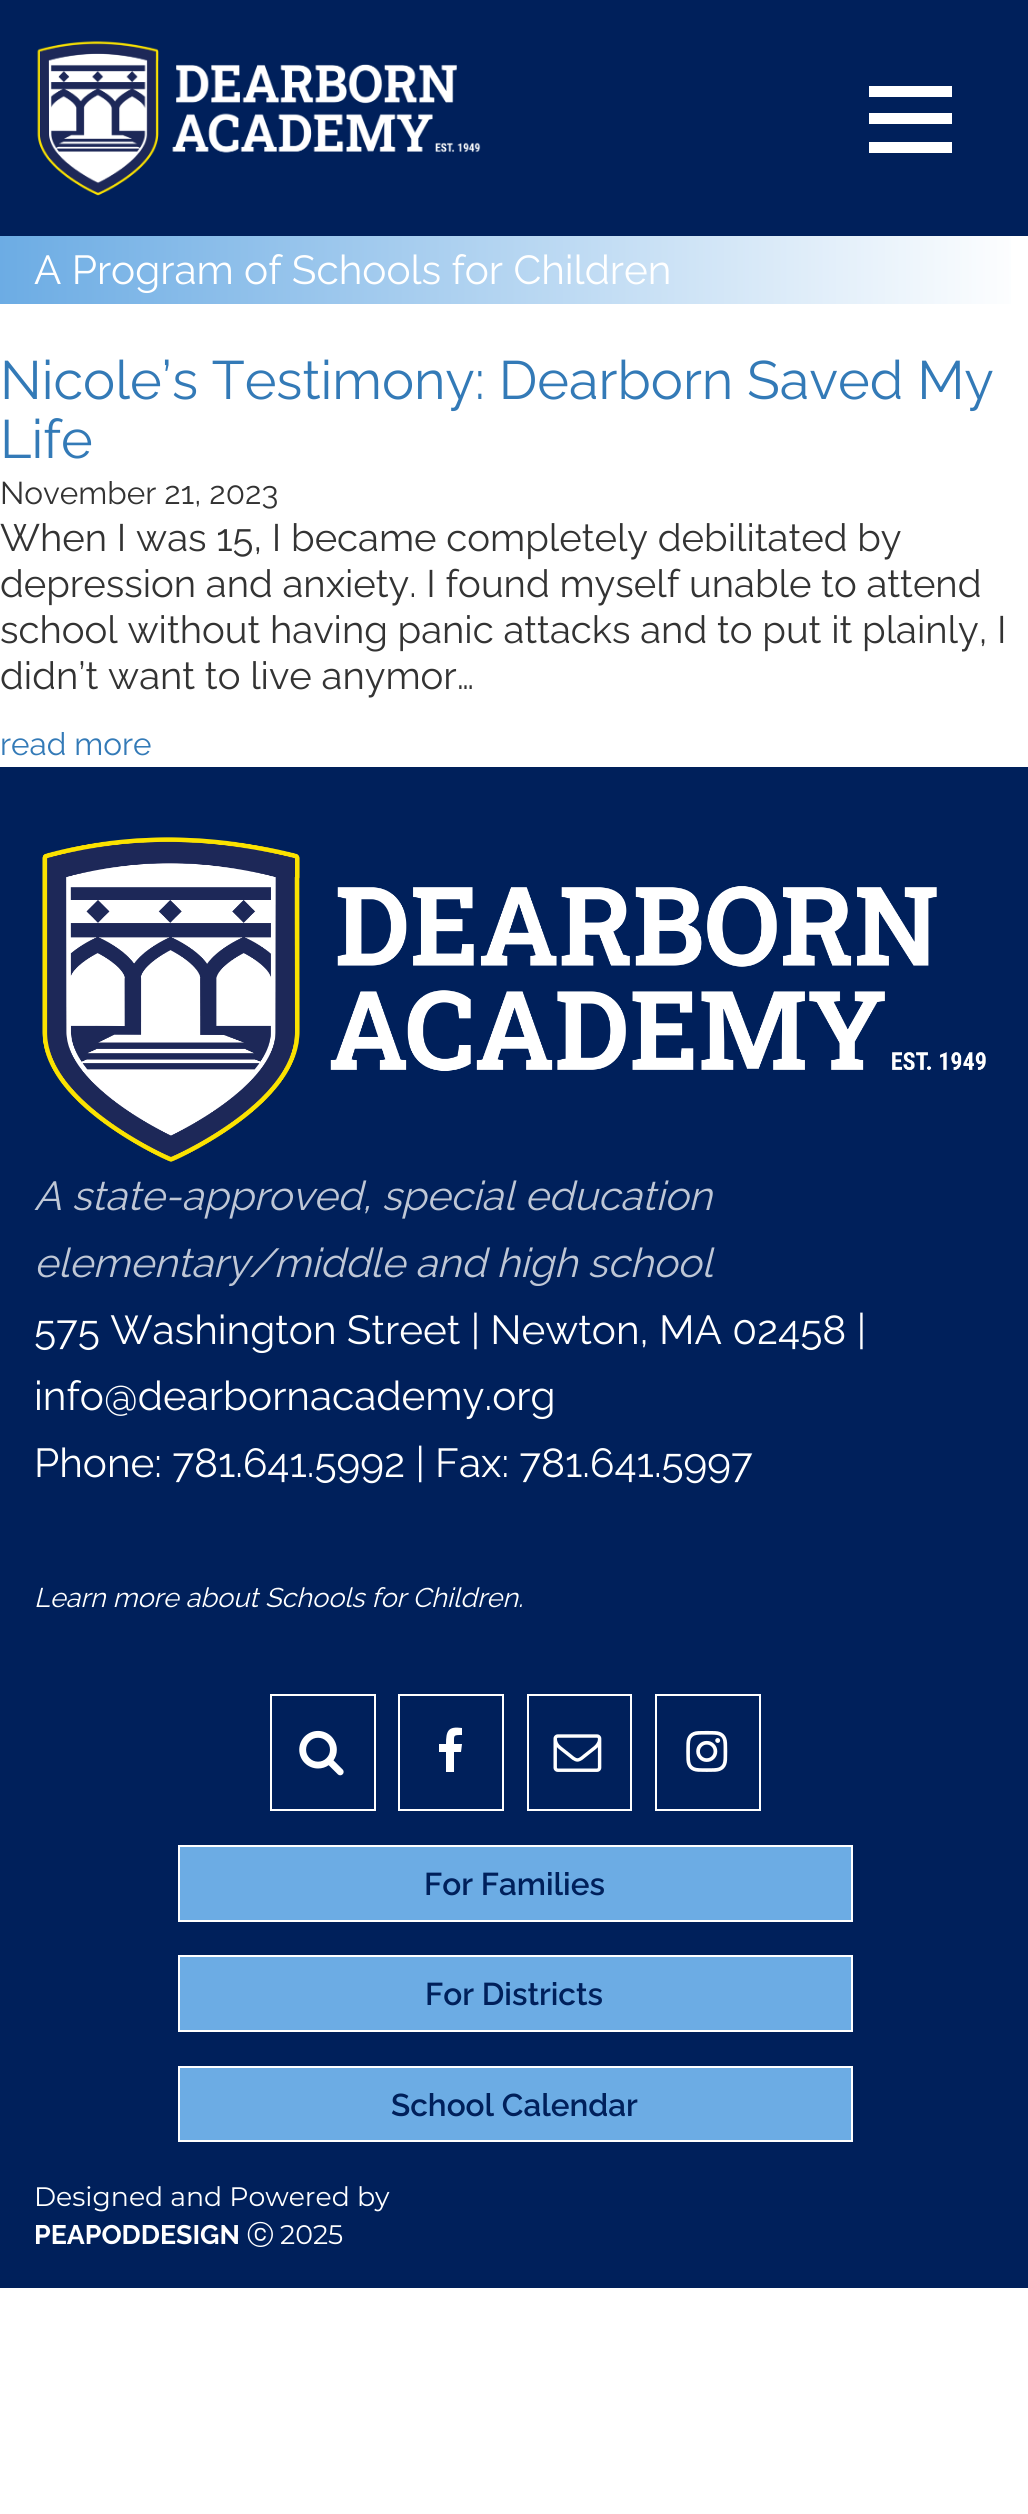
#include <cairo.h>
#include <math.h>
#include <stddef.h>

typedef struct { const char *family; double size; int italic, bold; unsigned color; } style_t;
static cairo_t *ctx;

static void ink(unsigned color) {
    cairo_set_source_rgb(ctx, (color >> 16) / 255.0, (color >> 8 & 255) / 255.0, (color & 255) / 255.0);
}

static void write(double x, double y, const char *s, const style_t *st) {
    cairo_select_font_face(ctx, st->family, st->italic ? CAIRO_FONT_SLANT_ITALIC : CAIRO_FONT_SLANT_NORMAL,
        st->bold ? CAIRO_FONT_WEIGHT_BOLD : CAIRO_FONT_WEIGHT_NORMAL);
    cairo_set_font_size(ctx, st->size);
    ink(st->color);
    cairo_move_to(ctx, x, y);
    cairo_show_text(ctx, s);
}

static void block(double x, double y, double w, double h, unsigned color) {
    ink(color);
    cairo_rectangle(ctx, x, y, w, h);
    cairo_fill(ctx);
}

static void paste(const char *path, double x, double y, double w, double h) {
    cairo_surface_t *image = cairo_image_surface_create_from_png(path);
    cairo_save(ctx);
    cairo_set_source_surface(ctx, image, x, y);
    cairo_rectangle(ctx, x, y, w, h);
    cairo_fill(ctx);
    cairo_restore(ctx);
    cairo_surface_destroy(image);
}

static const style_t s1 = {"Raleway", 40.5, 0, 0, 0xffffff};
static const style_t s2 = {"Raleway", 54, 0, 0, 0x337ab7};
static const style_t s3 = {"Raleway", 31.5, 0, 0, 0x333333};
static const style_t s4 = {"Raleway", 38.25, 0, 0, 0x333333};
static const style_t s5 = {"Raleway", 31.5, 0, 0, 0x337ab7};
static const style_t s6 = {"Raleway", 40.5, 1, 0, 0xbfc7d6};
static const style_t s7 = {"Raleway", 27, 1, 0, 0xffffff};
static const style_t s8 = {"Raleway SemiBold", 31.5, 0, 0, 0x00205b};
static const style_t s9 = {"Montserrat", 26.75, 0, 0, 0xffffff};
static const style_t s10 = {"Raleway", 26.75, 0, 1, 0xffffff};
static const style_t s11 = {"WenQuanYi Zen Hei Medium", 26.75, 0, 0, 0xffffff};

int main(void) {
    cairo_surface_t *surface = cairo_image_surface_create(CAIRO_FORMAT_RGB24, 1028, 2514);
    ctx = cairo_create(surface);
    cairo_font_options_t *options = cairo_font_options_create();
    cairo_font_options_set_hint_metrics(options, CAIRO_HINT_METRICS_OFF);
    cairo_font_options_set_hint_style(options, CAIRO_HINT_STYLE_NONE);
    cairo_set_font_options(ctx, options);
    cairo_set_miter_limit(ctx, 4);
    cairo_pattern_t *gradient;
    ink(0xffffff);
    cairo_paint(ctx);
    block(0, 0, 1028, 236, 0x00205b);
    paste("pic1.png", 37, 41, 444, 155);
    block(869, 86, 83, 11, 0xffffff);
    block(869, 113, 83, 11, 0xffffff);
    block(869, 142, 83, 11, 0xffffff);
    gradient = cairo_pattern_create_linear(0, 270, 1028, 270);
    cairo_pattern_add_color_stop_rgba(gradient, 0, 0.424, 0.675, 0.894, 1);
    cairo_pattern_add_color_stop_rgba(gradient, 1, 1, 1, 1, 1);
    cairo_set_source(ctx, gradient);
    cairo_pattern_destroy(gradient);
    cairo_rectangle(ctx, 0, 236, 1011, 68);
    cairo_fill(ctx);
    write(34, 284, "A Program of Schools for Children", &s1);
    write(0, 399, "Nicole’s Testimony: Dearborn Saved My", &s2);
    write(0, 458, "Life", &s2);
    write(0, 504, "November 21, 2023", &s3);
    write(0, 551, "When I was 15, I became completely debilitated by", &s4);
    write(0, 597, "depression and anxiety. I found myself unable to attend", &s4);
    write(0, 643, "school without having panic attacks and to put it plainly, I", &s4);
    write(0, 689, "didn’t want to live anymor…", &s4);
    write(0, 755, "read more", &s5);
    block(0, 767, 1028, 1521, 0x00205b);
    paste("pic2.png", 42, 837, 944, 325);
    write(34, 1210, "A state-approved, special education", &s6);
    write(34, 1277, "elementary/middle and high school", &s6);
    write(34, 1344, "575 Washington Street | Newton, MA 02458 |", &s1);
    write(34, 1410, "info@dearbornacademy.org", &s1);
    write(34, 1477, "Phone: 781.641.5992 | Fax: 781.641.5997", &s1);
    write(34, 1607, "Learn more about Schools for Children.", &s7);
    cairo_rectangle(ctx, 271, 1695, 104, 115);
    cairo_stroke(ctx);
    paste("pic3.png", 299, 1730, 45, 46);
    cairo_rectangle(ctx, 399, 1695, 104, 115);
    cairo_stroke(ctx);
    cairo_new_path(ctx);
    cairo_move_to(ctx, 462, 1728);
    cairo_line_to(ctx, 462, 1735);
    cairo_curve_to(ctx, 453, 1735, 454, 1735, 454, 1744);
    cairo_line_to(ctx, 462, 1744);
    cairo_line_to(ctx, 461, 1752);
    cairo_line_to(ctx, 454, 1752);
    cairo_line_to(ctx, 454, 1772);
    cairo_line_to(ctx, 446, 1772);
    cairo_line_to(ctx, 446, 1752);
    cairo_line_to(ctx, 439, 1752);
    cairo_line_to(ctx, 439, 1744);
    cairo_line_to(ctx, 446, 1744);
    cairo_curve_to(ctx, 446, 1731, 448, 1726, 462, 1728);
    cairo_close_path(ctx);
    cairo_fill(ctx);
    cairo_rectangle(ctx, 528, 1695, 103, 115);
    cairo_stroke(ctx);
    paste("pic4.png", 553, 1734, 49, 38);
    cairo_rectangle(ctx, 656, 1695, 104, 115);
    cairo_stroke(ctx);
    paste("pic5.png", 686, 1730, 42, 42);
    ink(0x6cace4);
    cairo_rectangle(ctx, 179, 1846, 673, 75);
    cairo_fill_preserve(ctx);
    ink(0xffffff);
    cairo_stroke(ctx);
    write(424, 1895, "For Families", &s8);
    ink(0x6cace4);
    cairo_rectangle(ctx, 179, 1956, 673, 75);
    cairo_fill_preserve(ctx);
    ink(0xffffff);
    cairo_stroke(ctx);
    write(425, 2005, "For Districts", &s8);
    ink(0x6cace4);
    cairo_rectangle(ctx, 179, 2067, 673, 74);
    cairo_fill_preserve(ctx);
    ink(0xffffff);
    cairo_stroke(ctx);
    write(391, 2116, "School Calendar", &s8);
    write(34, 2206, "Designed and Powered by", &s9);
    write(34, 2244, "PEAPODDESIGN", &s10);
    write(247, 2244, "ⓒ", &s11);
    write(280, 2244, "2025", &s9);
    cairo_surface_write_to_png(surface, "screenshot.png");
    cairo_font_options_destroy(options);
    cairo_destroy(ctx);
    cairo_surface_destroy(surface);
    return 0;
}
